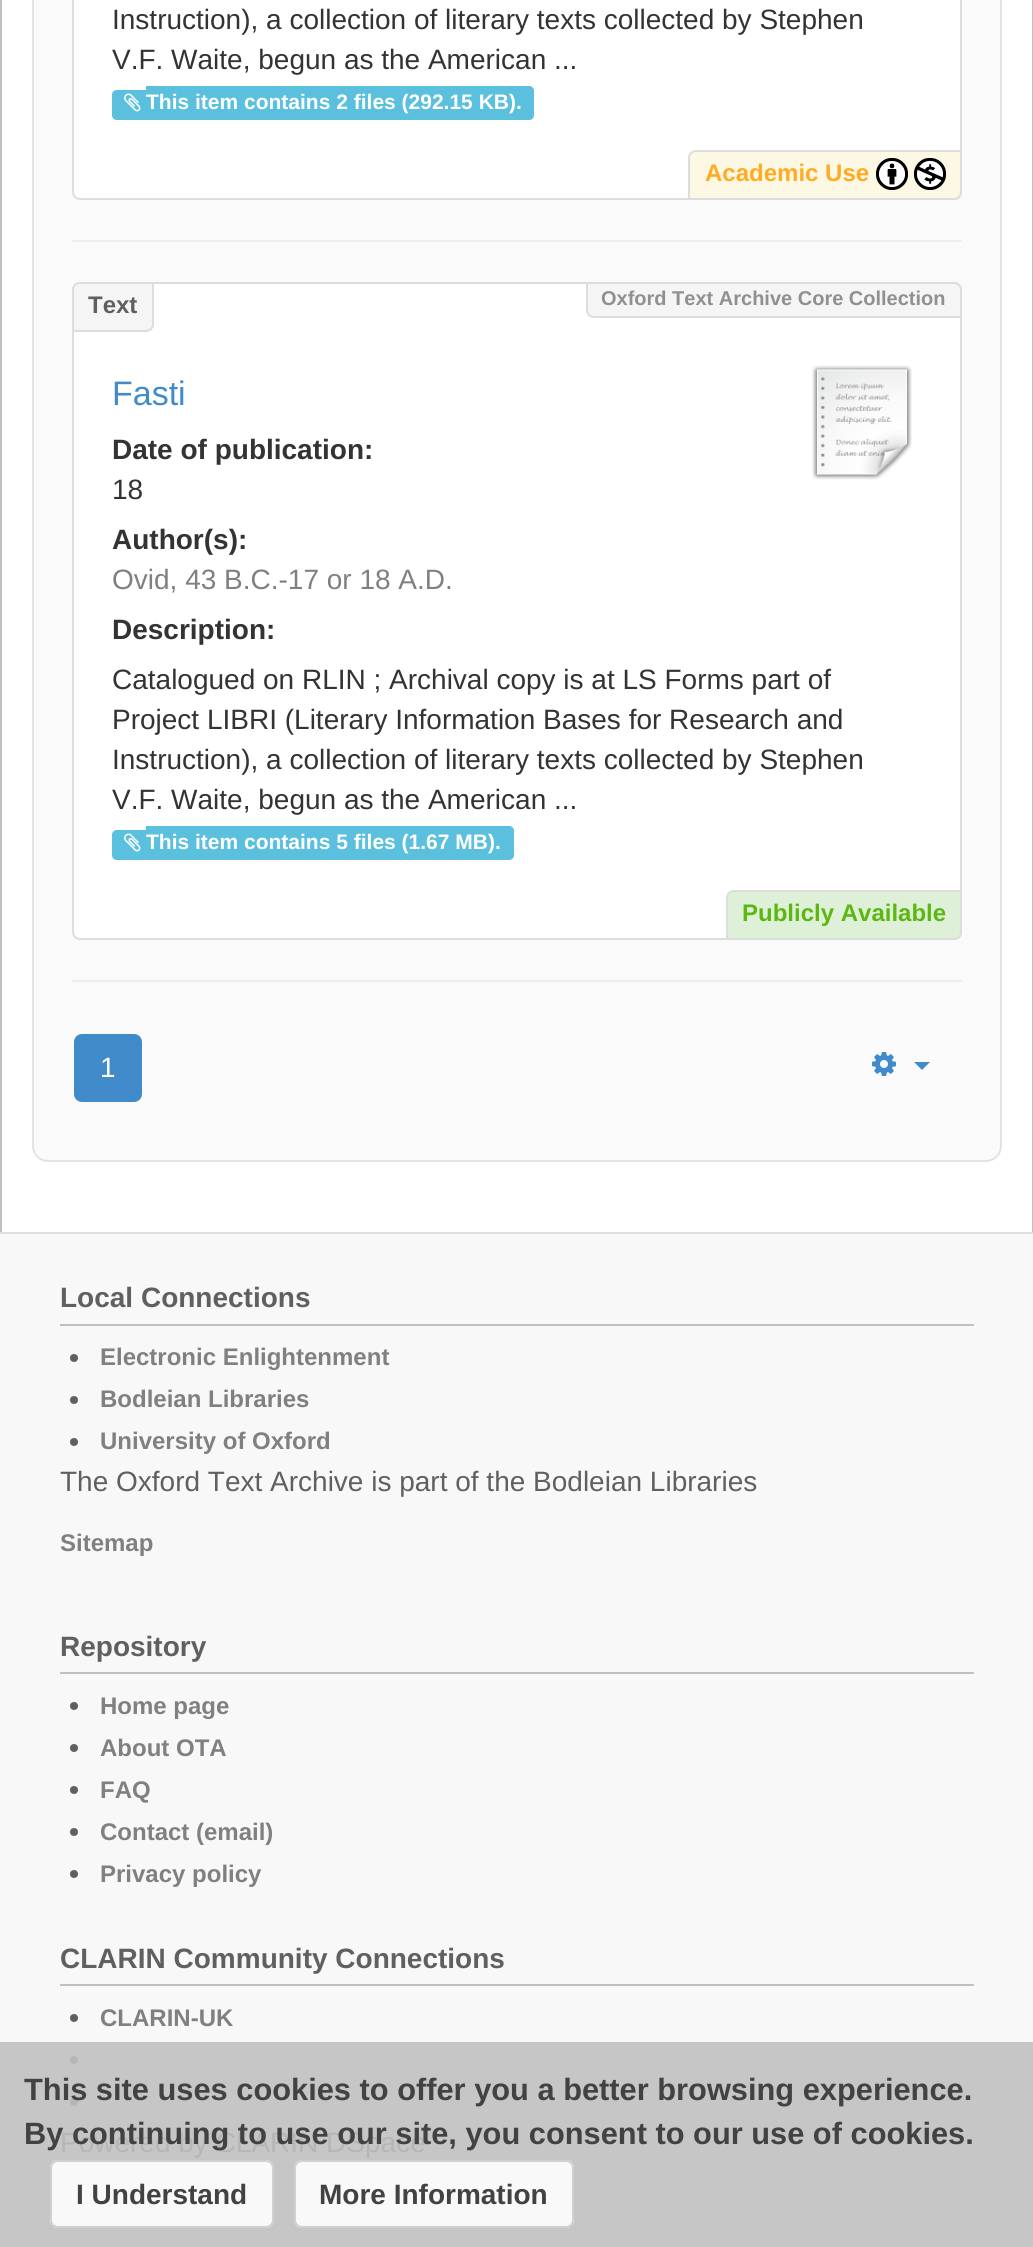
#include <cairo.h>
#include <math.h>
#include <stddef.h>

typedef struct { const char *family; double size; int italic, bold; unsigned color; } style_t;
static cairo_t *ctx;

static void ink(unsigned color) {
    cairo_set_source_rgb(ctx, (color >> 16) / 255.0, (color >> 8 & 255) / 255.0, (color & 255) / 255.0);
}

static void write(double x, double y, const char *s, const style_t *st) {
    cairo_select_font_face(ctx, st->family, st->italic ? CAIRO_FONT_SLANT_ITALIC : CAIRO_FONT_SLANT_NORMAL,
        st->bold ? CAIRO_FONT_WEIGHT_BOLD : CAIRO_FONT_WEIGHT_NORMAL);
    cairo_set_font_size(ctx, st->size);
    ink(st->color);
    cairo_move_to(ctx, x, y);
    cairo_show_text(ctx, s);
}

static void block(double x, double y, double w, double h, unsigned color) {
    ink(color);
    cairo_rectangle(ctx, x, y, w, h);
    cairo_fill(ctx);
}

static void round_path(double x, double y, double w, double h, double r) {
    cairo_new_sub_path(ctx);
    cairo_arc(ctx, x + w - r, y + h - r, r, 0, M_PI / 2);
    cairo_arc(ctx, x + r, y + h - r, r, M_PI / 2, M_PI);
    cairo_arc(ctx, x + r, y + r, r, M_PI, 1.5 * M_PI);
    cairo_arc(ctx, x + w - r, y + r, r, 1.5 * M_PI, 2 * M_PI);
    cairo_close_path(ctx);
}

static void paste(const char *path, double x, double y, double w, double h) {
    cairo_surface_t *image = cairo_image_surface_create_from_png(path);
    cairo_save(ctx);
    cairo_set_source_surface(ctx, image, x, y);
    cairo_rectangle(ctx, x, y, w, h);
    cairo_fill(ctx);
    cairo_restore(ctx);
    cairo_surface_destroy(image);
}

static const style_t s1 = {"Liberation Sans", 28, 0, 0, 0x333333};
static const style_t s2 = {"Liberation Sans", 21, 0, 1, 0xffffff};
static const style_t s3 = {"Liberation Sans", 24, 0, 1, 0xffab23};
static const style_t s4 = {"Liberation Sans", 24, 0, 1, 0x606060};
static const style_t s5 = {"Liberation Sans", 20, 0, 1, 0x909090};
static const style_t s6 = {"Liberation Sans", 34, 0, 0, 0x428bca};
static const style_t s7 = {"Liberation Sans", 28, 0, 1, 0x333333};
static const style_t s8 = {"Liberation Sans", 28, 0, 0, 0x808080};
static const style_t s9 = {"Liberation Sans", 24, 0, 1, 0x5cb811};
static const style_t s10 = {"Liberation Sans", 28, 0, 0, 0xffffff};
static const style_t s11 = {"Liberation Sans", 28, 0, 1, 0x606060};
static const style_t s12 = {"Liberation Sans", 24, 0, 1, 0x808080};
static const style_t s13 = {"Liberation Sans", 28, 0, 0, 0x606060};
static const style_t s14 = {"Liberation Sans", 28, 0, 0, 0xb6b6b6};
static const style_t s15 = {"Liberation Sans", 30.8, 0, 1, 0x424242};
static const style_t s16 = {"Liberation Sans", 28, 0, 1, 0x424242};

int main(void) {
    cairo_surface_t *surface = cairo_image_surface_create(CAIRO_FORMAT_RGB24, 1033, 2247);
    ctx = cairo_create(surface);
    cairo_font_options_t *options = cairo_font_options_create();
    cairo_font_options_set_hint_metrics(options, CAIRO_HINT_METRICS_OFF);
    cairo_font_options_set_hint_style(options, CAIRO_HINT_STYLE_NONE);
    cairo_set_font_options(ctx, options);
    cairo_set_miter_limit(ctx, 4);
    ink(0xffffff);
    cairo_paint(ctx);
    block(1032, 0, 1, 1232, 0xc0c0c0);
    block(0, 0, 2, 1232, 0xc0c0c0);
    ink(0xfafafa);
    round_path(33, -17, 968, 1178, 15);
    cairo_fill_preserve(ctx);
    ink(0xe3e3e3);
    cairo_stroke(ctx);
    ink(0xffffff);
    round_path(73, -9, 888, 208, 7);
    cairo_fill_preserve(ctx);
    ink(0xdddddd);
    cairo_stroke(ctx);
    write(112, 29, "Instruction), a collection of literary texts collected by Stephen", &s1);
    write(112, 69, "V.F. Waite, begun as the American ...", &s1);
    ink(0x5bc0de);
    cairo_new_path(ctx);
    cairo_move_to(ctx, 117, 90);
    cairo_line_to(ctx, 146, 90);
    cairo_line_to(ctx, 146, 120);
    cairo_line_to(ctx, 117, 120);
    cairo_curve_to(ctx, 114, 120, 112, 118, 112, 115);
    cairo_line_to(ctx, 112, 95);
    cairo_curve_to(ctx, 112, 92, 114, 90, 117, 90);
    cairo_close_path(ctx);
    cairo_fill(ctx);
    cairo_new_path(ctx);
    cairo_move_to(ctx, 146, 86);
    cairo_line_to(ctx, 529, 86);
    cairo_curve_to(ctx, 532, 86, 534, 88, 534, 91);
    cairo_line_to(ctx, 534, 115);
    cairo_curve_to(ctx, 534, 118, 532, 120, 529, 120);
    cairo_line_to(ctx, 146, 120);
    cairo_close_path(ctx);
    cairo_fill(ctx);
    paste("pic1.png", 124, 93, 17, 19);
    write(146, 109, "This item contains 2 files (292.15 KB).", &s2);
    ink(0xfcf8e3);
    cairo_new_path(ctx);
    cairo_move_to(ctx, 696, 151);
    cairo_line_to(ctx, 961, 151);
    cairo_line_to(ctx, 961, 192);
    cairo_curve_to(ctx, 961, 196, 958, 199, 954, 199);
    cairo_line_to(ctx, 689, 199);
    cairo_line_to(ctx, 689, 158);
    cairo_curve_to(ctx, 689, 154, 692, 151, 696, 151);
    cairo_close_path(ctx);
    cairo_fill_preserve(ctx);
    ink(0xdddddd);
    cairo_stroke(ctx);
    write(705, 181, "Academic Use", &s3);
    paste("pic2.png", 876, 158, 32, 32);
    paste("pic3.png", 914, 158, 32, 32);
    block(72, 240, 890, 2, 0xeeeeee);
    ink(0xffffff);
    round_path(73, 283, 888, 656, 7);
    cairo_fill_preserve(ctx);
    ink(0xdddddd);
    cairo_stroke(ctx);
    ink(0xf5f5f5);
    cairo_new_path(ctx);
    cairo_move_to(ctx, 80, 283);
    cairo_line_to(ctx, 153, 283);
    cairo_line_to(ctx, 153, 324);
    cairo_curve_to(ctx, 153, 328, 150, 331, 146, 331);
    cairo_line_to(ctx, 73, 331);
    cairo_line_to(ctx, 73, 290);
    cairo_curve_to(ctx, 73, 286, 76, 283, 80, 283);
    cairo_close_path(ctx);
    cairo_fill_preserve(ctx);
    ink(0xdddddd);
    cairo_stroke(ctx);
    write(88, 313, "Text", &s4);
    ink(0xf5f5f5);
    cairo_new_path(ctx);
    cairo_move_to(ctx, 587, 283);
    cairo_line_to(ctx, 954, 283);
    cairo_curve_to(ctx, 958, 283, 961, 286, 961, 290);
    cairo_line_to(ctx, 961, 317);
    cairo_line_to(ctx, 594, 317);
    cairo_curve_to(ctx, 590, 317, 587, 314, 587, 310);
    cairo_close_path(ctx);
    cairo_fill_preserve(ctx);
    ink(0xdddddd);
    cairo_stroke(ctx);
    write(601, 305, "Oxford Text Archive Core Collection", &s5);
    write(112, 405, "Fasti", &s6);
    paste("pic4.png", 812, 365, 100, 115);
    write(112, 459, "Date of publication:", &s7);
    write(112, 499, "18", &s1);
    write(112, 549, "Author(s):", &s7);
    write(112, 589, "Ovid, 43 B.C.-17 or 18 A.D.", &s8);
    write(112, 639, "Description:", &s7);
    write(112, 689, "Catalogued on RLIN ; Archival copy is at LS Forms part of", &s1);
    write(112, 729, "Project LIBRI (Literary Information Bases for Research and", &s1);
    write(112, 769, "Instruction), a collection of literary texts collected by Stephen", &s1);
    write(112, 809, "V.F. Waite, begun as the American ...", &s1);
    ink(0x5bc0de);
    cairo_new_path(ctx);
    cairo_move_to(ctx, 117, 830);
    cairo_line_to(ctx, 146, 830);
    cairo_line_to(ctx, 146, 860);
    cairo_line_to(ctx, 117, 860);
    cairo_curve_to(ctx, 114, 860, 112, 858, 112, 855);
    cairo_line_to(ctx, 112, 835);
    cairo_curve_to(ctx, 112, 832, 114, 830, 117, 830);
    cairo_close_path(ctx);
    cairo_fill(ctx);
    cairo_new_path(ctx);
    cairo_move_to(ctx, 146, 826);
    cairo_line_to(ctx, 509, 826);
    cairo_curve_to(ctx, 512, 826, 514, 828, 514, 831);
    cairo_line_to(ctx, 514, 855);
    cairo_curve_to(ctx, 514, 858, 512, 860, 509, 860);
    cairo_line_to(ctx, 146, 860);
    cairo_close_path(ctx);
    cairo_fill(ctx);
    paste("pic1.png", 124, 833, 17, 19);
    write(146, 849, "This item contains 5 files (1.67 MB).", &s2);
    ink(0xdff0d8);
    cairo_new_path(ctx);
    cairo_move_to(ctx, 734, 891);
    cairo_line_to(ctx, 961, 891);
    cairo_line_to(ctx, 961, 932);
    cairo_curve_to(ctx, 961, 936, 958, 939, 954, 939);
    cairo_line_to(ctx, 727, 939);
    cairo_line_to(ctx, 727, 898);
    cairo_curve_to(ctx, 727, 894, 730, 891, 734, 891);
    cairo_close_path(ctx);
    cairo_fill_preserve(ctx);
    ink(0xdddddd);
    cairo_stroke(ctx);
    write(742, 921, "Publicly Available", &s9);
    block(72, 980, 890, 2, 0xeeeeee);
    ink(0x428bca);
    round_path(75, 1035, 66, 66, 7);
    cairo_fill_preserve(ctx);
    cairo_stroke(ctx);
    write(100, 1077, "1", &s10);
    paste("pic5.png", 872, 1052, 24, 24);
    ink(0x428bca);
    cairo_new_path(ctx);
    cairo_move_to(ctx, 914, 1062);
    cairo_line_to(ctx, 930, 1062);
    cairo_line_to(ctx, 922, 1070);
    cairo_close_path(ctx);
    cairo_fill(ctx);
    block(0, 1234, 1033, 808, 0xf8f8f8);
    block(0, 2042, 1033, 205, 0xc6c6c6);
    block(0, 1232, 1033, 2, 0xe0e0e0);
    block(60, 1324, 914, 2, 0xc0c0c0);
    write(60, 1307, "Local Connections", &s11);
    cairo_new_path(ctx);
    cairo_arc(ctx, 74, 1358, 4, 0, 2 * M_PI);
    cairo_fill(ctx);
    write(100, 1365, "Electronic Enlightenment", &s12);
    ink(0x606060);
    cairo_new_path(ctx);
    cairo_arc(ctx, 74, 1400, 4, 0, 2 * M_PI);
    cairo_fill(ctx);
    write(100, 1407, "Bodleian Libraries", &s12);
    ink(0x606060);
    cairo_new_path(ctx);
    cairo_arc(ctx, 74, 1442, 4, 0, 2 * M_PI);
    cairo_fill(ctx);
    write(100, 1449, "University of Oxford", &s12);
    write(60, 1491, "The Oxford Text Archive is part of the Bodleian Libraries", &s13);
    write(60, 1551, "Sitemap", &s12);
    block(60, 1672, 914, 2, 0xc0c0c0);
    write(60, 1656, "Repository", &s11);
    cairo_new_path(ctx);
    cairo_arc(ctx, 74, 1706, 4, 0, 2 * M_PI);
    cairo_fill(ctx);
    write(100, 1714, "Home page", &s12);
    ink(0x606060);
    cairo_new_path(ctx);
    cairo_arc(ctx, 74, 1748, 4, 0, 2 * M_PI);
    cairo_fill(ctx);
    write(100, 1756, "About OTA", &s12);
    ink(0x606060);
    cairo_new_path(ctx);
    cairo_arc(ctx, 74, 1790, 4, 0, 2 * M_PI);
    cairo_fill(ctx);
    write(100, 1798, "FAQ", &s12);
    ink(0x606060);
    cairo_new_path(ctx);
    cairo_arc(ctx, 74, 1832, 4, 0, 2 * M_PI);
    cairo_fill(ctx);
    write(100, 1840, "Contact (email)", &s12);
    ink(0x606060);
    cairo_new_path(ctx);
    cairo_arc(ctx, 74, 1874, 4, 0, 2 * M_PI);
    cairo_fill(ctx);
    write(100, 1882, "Privacy policy", &s12);
    block(60, 1984, 914, 2, 0xc0c0c0);
    write(60, 1968, "CLARIN Community Connections", &s11);
    cairo_new_path(ctx);
    cairo_arc(ctx, 74, 2018, 4, 0, 2 * M_PI);
    cairo_fill(ctx);
    write(100, 2026, "CLARIN-UK", &s12);
    ink(0xb6b6b6);
    cairo_new_path(ctx);
    cairo_arc(ctx, 74, 2060, 4, 0, 2 * M_PI);
    cairo_fill(ctx);
    cairo_arc(ctx, 74, 2102, 4, 0, 2 * M_PI);
    cairo_fill(ctx);
    write(60, 2152, "Powered by CLARIN DSpace", &s14);
    write(24, 2100, "This site uses cookies to offer you a better browsing experience.", &s15);
    write(24, 2144, "By continuing to use our site, you consent to our use of cookies.", &s15);
    ink(0xf9f9f9);
    round_path(50, 2160, 224, 68, 8);
    cairo_fill(ctx);
    round_path(51, 2161, 222, 66, 7);
    cairo_set_source_rgba(ctx, 0.8, 0.8, 0.8, 0.9);
    cairo_stroke(ctx);
    write(76, 2204, "I Understand", &s16);
    ink(0xf9f9f9);
    round_path(294, 2160, 280, 68, 8);
    cairo_fill(ctx);
    round_path(295, 2161, 278, 66, 7);
    cairo_set_source_rgba(ctx, 0.8, 0.8, 0.8, 0.9);
    cairo_stroke(ctx);
    write(319, 2204, "More Information", &s16);
    cairo_surface_write_to_png(surface, "screenshot.png");
    cairo_font_options_destroy(options);
    cairo_destroy(ctx);
    cairo_surface_destroy(surface);
    return 0;
}
